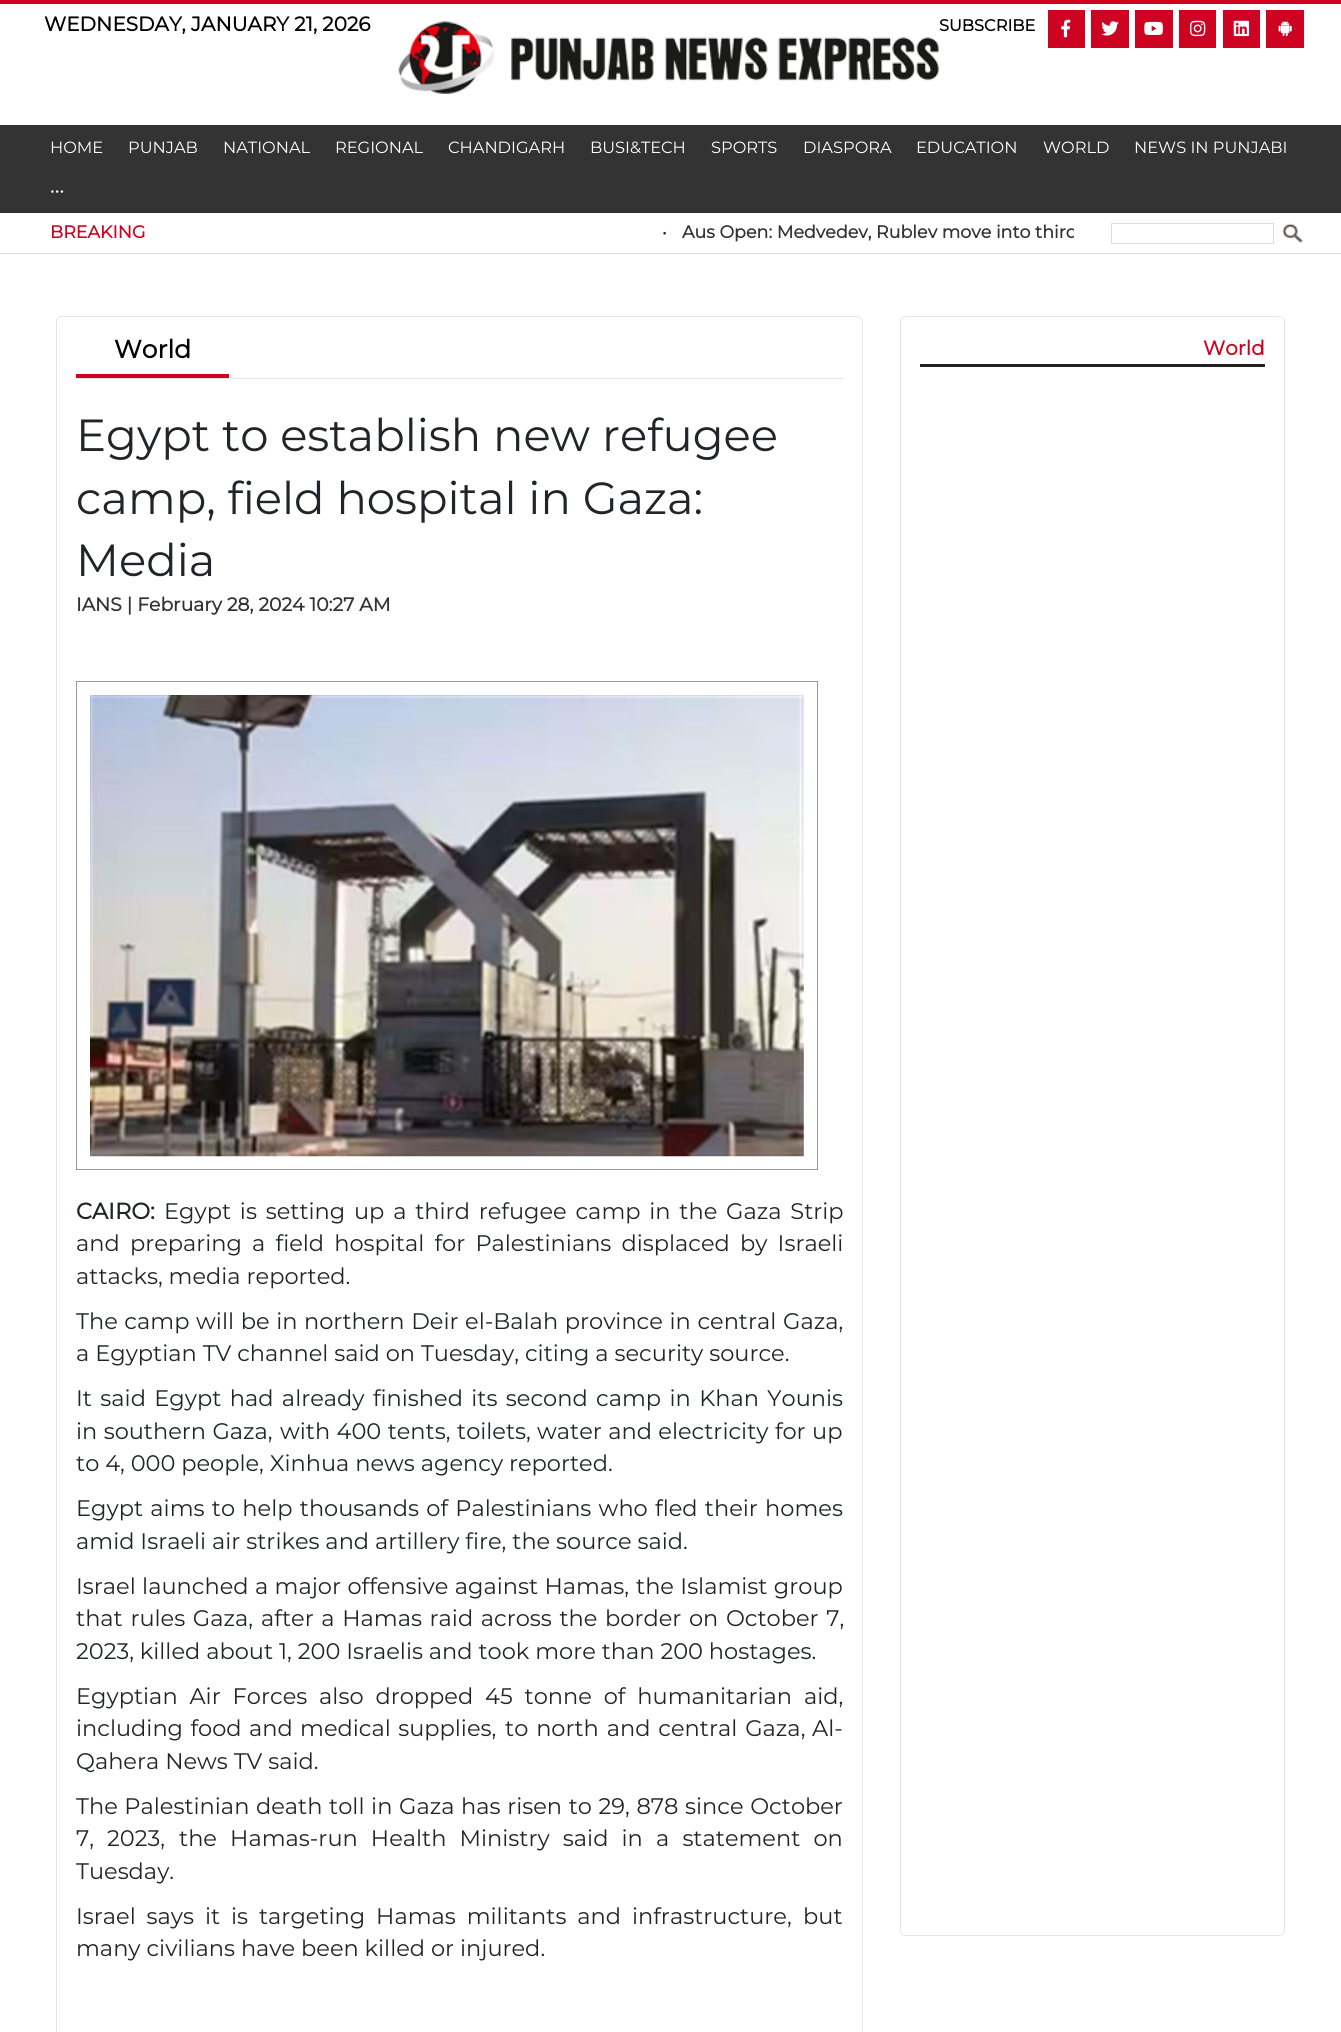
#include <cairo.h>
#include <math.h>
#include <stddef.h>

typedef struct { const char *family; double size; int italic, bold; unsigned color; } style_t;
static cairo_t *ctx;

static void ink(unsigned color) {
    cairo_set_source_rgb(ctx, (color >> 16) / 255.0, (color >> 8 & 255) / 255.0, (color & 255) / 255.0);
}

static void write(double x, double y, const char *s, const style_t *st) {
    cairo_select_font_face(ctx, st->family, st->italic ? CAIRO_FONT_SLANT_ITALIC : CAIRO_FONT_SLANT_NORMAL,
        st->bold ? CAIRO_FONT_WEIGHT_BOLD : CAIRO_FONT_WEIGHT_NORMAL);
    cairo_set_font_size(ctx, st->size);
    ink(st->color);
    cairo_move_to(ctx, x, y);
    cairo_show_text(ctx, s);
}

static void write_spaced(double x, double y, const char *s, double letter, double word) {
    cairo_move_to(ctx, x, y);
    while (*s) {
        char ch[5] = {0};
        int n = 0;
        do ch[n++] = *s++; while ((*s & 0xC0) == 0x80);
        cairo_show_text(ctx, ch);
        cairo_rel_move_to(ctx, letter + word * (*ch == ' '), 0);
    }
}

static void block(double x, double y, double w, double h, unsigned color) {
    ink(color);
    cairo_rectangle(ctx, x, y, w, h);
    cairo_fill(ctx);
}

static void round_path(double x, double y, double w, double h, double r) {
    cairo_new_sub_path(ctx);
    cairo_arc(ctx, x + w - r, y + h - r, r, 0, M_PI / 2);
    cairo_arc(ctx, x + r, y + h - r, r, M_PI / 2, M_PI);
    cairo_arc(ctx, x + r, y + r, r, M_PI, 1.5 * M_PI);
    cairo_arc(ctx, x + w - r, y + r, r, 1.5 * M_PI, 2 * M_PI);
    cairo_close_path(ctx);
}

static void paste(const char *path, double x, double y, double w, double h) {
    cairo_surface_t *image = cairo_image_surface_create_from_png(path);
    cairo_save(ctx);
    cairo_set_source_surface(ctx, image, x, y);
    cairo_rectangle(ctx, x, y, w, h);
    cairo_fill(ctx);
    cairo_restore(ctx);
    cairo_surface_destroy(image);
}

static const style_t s1 = {"Montserrat", 20, 0, 1, 0x000000};
static const style_t s2 = {"Montserrat", 16.25, 0, 1, 0x000000};
static const style_t s3 = {"Montserrat Thin", 16.25, 0, 0, 0xffffff};
static const style_t s4 = {"Montserrat", 17.5, 0, 1, 0xcd0321};
static const style_t s5 = {"Montserrat Thin", 17.5, 0, 0, 0x212529};
static const style_t s6 = {"Montserrat", 17.5, 0, 1, 0x333333};
static const style_t s7 = {"Montserrat", 25, 0, 1, 0x000000};
static const style_t s8 = {"Montserrat Thin", 45, 0, 0, 0x212529};
static const style_t s9 = {"Montserrat", 18.75, 0, 1, 0x333333};
static const style_t s10 = {"Montserrat", 22.5, 0, 1, 0x212529};
static const style_t s11 = {"Montserrat Thin", 22.5, 0, 0, 0x212529};
static const style_t s12 = {"Montserrat", 20, 0, 1, 0xcd0321};

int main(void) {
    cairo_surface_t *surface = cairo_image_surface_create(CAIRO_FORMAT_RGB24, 1341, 2032);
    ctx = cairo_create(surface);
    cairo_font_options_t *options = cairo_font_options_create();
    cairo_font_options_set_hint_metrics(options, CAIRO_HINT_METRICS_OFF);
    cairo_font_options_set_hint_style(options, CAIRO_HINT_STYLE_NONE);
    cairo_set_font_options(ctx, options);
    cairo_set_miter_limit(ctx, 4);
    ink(0xffffff);
    cairo_paint(ctx);
    block(0, 0, 1341, 4, 0xcd0321);
    write(44, 31, "WEDNESDAY, JANUARY 21, 2026", &s1);
    write(939, 31, "SUBSCRIBE", &s2);
    block(1048, 10, 37, 38, 0xcd0321);
    paste("pic1.png", 1061, 19, 10, 19);
    block(1091, 10, 38, 38, 0xcd0321);
    paste("pic2.png", 1101, 21, 18, 15);
    block(1135, 10, 38, 38, 0xcd0321);
    paste("pic3.png", 1144, 21, 19, 14);
    block(1179, 10, 37, 38, 0xcd0321);
    paste("pic4.png", 1190, 20, 16, 17);
    block(1223, 10, 37, 38, 0xcd0321);
    paste("pic5.png", 1233, 20, 17, 17);
    block(1266, 10, 38, 38, 0xcd0321);
    paste("pic6.png", 1278, 20, 14, 17);
    paste("pic7.png", 398, 21, 541, 73);
    block(0, 125, 1341, 88, 0x333333);
    write(50, 153, "HOME", &s3);
    write(128, 153, "PUNJAB", &s3);
    write(223, 153, "NATIONAL", &s3);
    write(335, 153, "REGIONAL", &s3);
    write(448, 153, "CHANDIGARH", &s3);
    write(590, 153, "BUSI&TECH", &s3);
    write(711, 153, "SPORTS", &s3);
    write(803, 153, "DIASPORA", &s3);
    write(916, 153, "EDUCATION", &s3);
    write(1043, 153, "WORLD", &s3);
    write(1134, 153, "NEWS IN PUNJABI", &s3);
    write(50, 196, "•••", &s3);
    block(0, 253, 1341, 1, 0xdddddd);
    write(50, 238, "BREAKING", &s4);
    write(662, 238, "•", &s5);
    cairo_save(ctx);
    cairo_rectangle(ctx, 161, 213, 913, 32);
    cairo_clip(ctx);
    write(682, 238, "Aus Open: Medvedev, Rublev move into third", &s6);
    cairo_restore(ctx);
    cairo_rectangle(ctx, 1111.5, 223.5, 162, 20);
    ink(0xdddddd);
    cairo_set_line_width(ctx, 1);
    cairo_stroke(ctx);
    paste("pic8.png", 1282, 223, 22, 20);
    round_path(56.5, 316.5, 806, 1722, 5.5);
    ink(0xe6e6e6);
    cairo_stroke(ctx);
    block(76, 378, 767, 1, 0xe6e6e6);
    block(76, 374, 153, 4, 0xcd0321);
    write(114, 358, "World", &s7);
    write(76, 451, "Egypt to establish new refugee", &s8);
    write(76, 514, "camp, field hospital in Gaza:", &s8);
    write(76, 576, "Media", &s8);
    write(76, 611, "IANS | February 28, 2024 10:27 AM", &s9);
    cairo_rectangle(ctx, 76.5, 681.5, 741, 488);
    ink(0x999999);
    cairo_stroke(ctx);
    paste("pic9.png", 90, 695, 714, 462);
    write(76, 1219, "CAIRO:", &s10);
    cairo_select_font_face(ctx, "Montserrat Thin", CAIRO_FONT_SLANT_NORMAL, CAIRO_FONT_WEIGHT_NORMAL);
    write_spaced(164, 1219, "Egypt is setting up a third refugee camp in the Gaza Strip", 0, 2.9);
    write_spaced(76, 1251, "and preparing a field hospital for Palestinians displaced by Israeli", 0, 4.25);
    write(76, 1284, "attacks, media reported.", &s11);
    write_spaced(76, 1329, "The camp will be in northern Deir el-Balah province in central Gaza,", 0, 0.75);
    write(76, 1361, "a Egyptian TV channel said on Tuesday, citing a security source.", &s11);
    write_spaced(76, 1406, "It said Egypt had already finished its second camp in Khan Younis", 0, 2.5);
    write_spaced(76, 1439, "in southern Gaza,", 0, 0.5);
    write_spaced(280, 1439, "with 400 tents,", 0, 0.5);
    write(457, 1439, "toilets,", &s11);
    write_spaced(537, 1439, "water and electricity for up", 0, 0.5);
    write(76, 1471, "to 4, 000 people, Xinhua news agency reported.", &s11);
    write_spaced(76, 1516, "Egypt aims to help thousands of Palestinians who fled their homes", 0, 1.4);
    write(76, 1549, "amid Israeli air strikes and artillery fire, the source said.", &s11);
    write_spaced(76, 1594, "Israel launched a major offensive against Hamas,", 0, 0.5);
    write_spaced(636, 1594, "the Islamist group", 0, 0.5);
    write_spaced(76, 1626, "that rules Gaza,", 0, 1.75);
    write_spaced(261, 1626, "after a Hamas raid across the border on October 7,", 0, 1.75);
    write(76, 1659, "2023, killed about 1, 200 Israelis and took more than 200 hostages.", &s11);
    write_spaced(76, 1704, "Egyptian Air Forces also dropped 45 tonne of humanitarian aid,", 0, 6);
    write_spaced(76, 1736, "including food and medical supplies,", 0, 1.5);
    write_spaced(505, 1736, "to north and central Gaza,", 0, 2);
    write(812, 1736, "Al-", &s11);
    write(76, 1769, "Qahera News TV said.", &s11);
    write_spaced(76, 1814, "The Palestinian death toll in Gaza has risen to 29, 878 since October", 0, 0.75);
    write(76, 1846, "7,", &s11);
    write(107, 1846, "2023,", &s11);
    write_spaced(179, 1846, "the Hamas-run Health Ministry said in a statement on", 0, 7.25);
    write(76, 1879, "Tuesday.", &s11);
    write_spaced(76, 1924, "Israel says it is targeting Hamas militants and infrastructure,", 0, 5);
    write(803, 1924, "but", &s11);
    write(76, 1956, "many civilians have been killed or injured.", &s11);
    round_path(900.5, 316.5, 384, 1619, 5.5);
    ink(0xe6e6e6);
    cairo_stroke(ctx);
    block(920, 364, 345, 3, 0x222222);
    write(1203, 355, "World", &s12);
    cairo_surface_write_to_png(surface, "screenshot.png");
    cairo_font_options_destroy(options);
    cairo_destroy(ctx);
    cairo_surface_destroy(surface);
    return 0;
}
